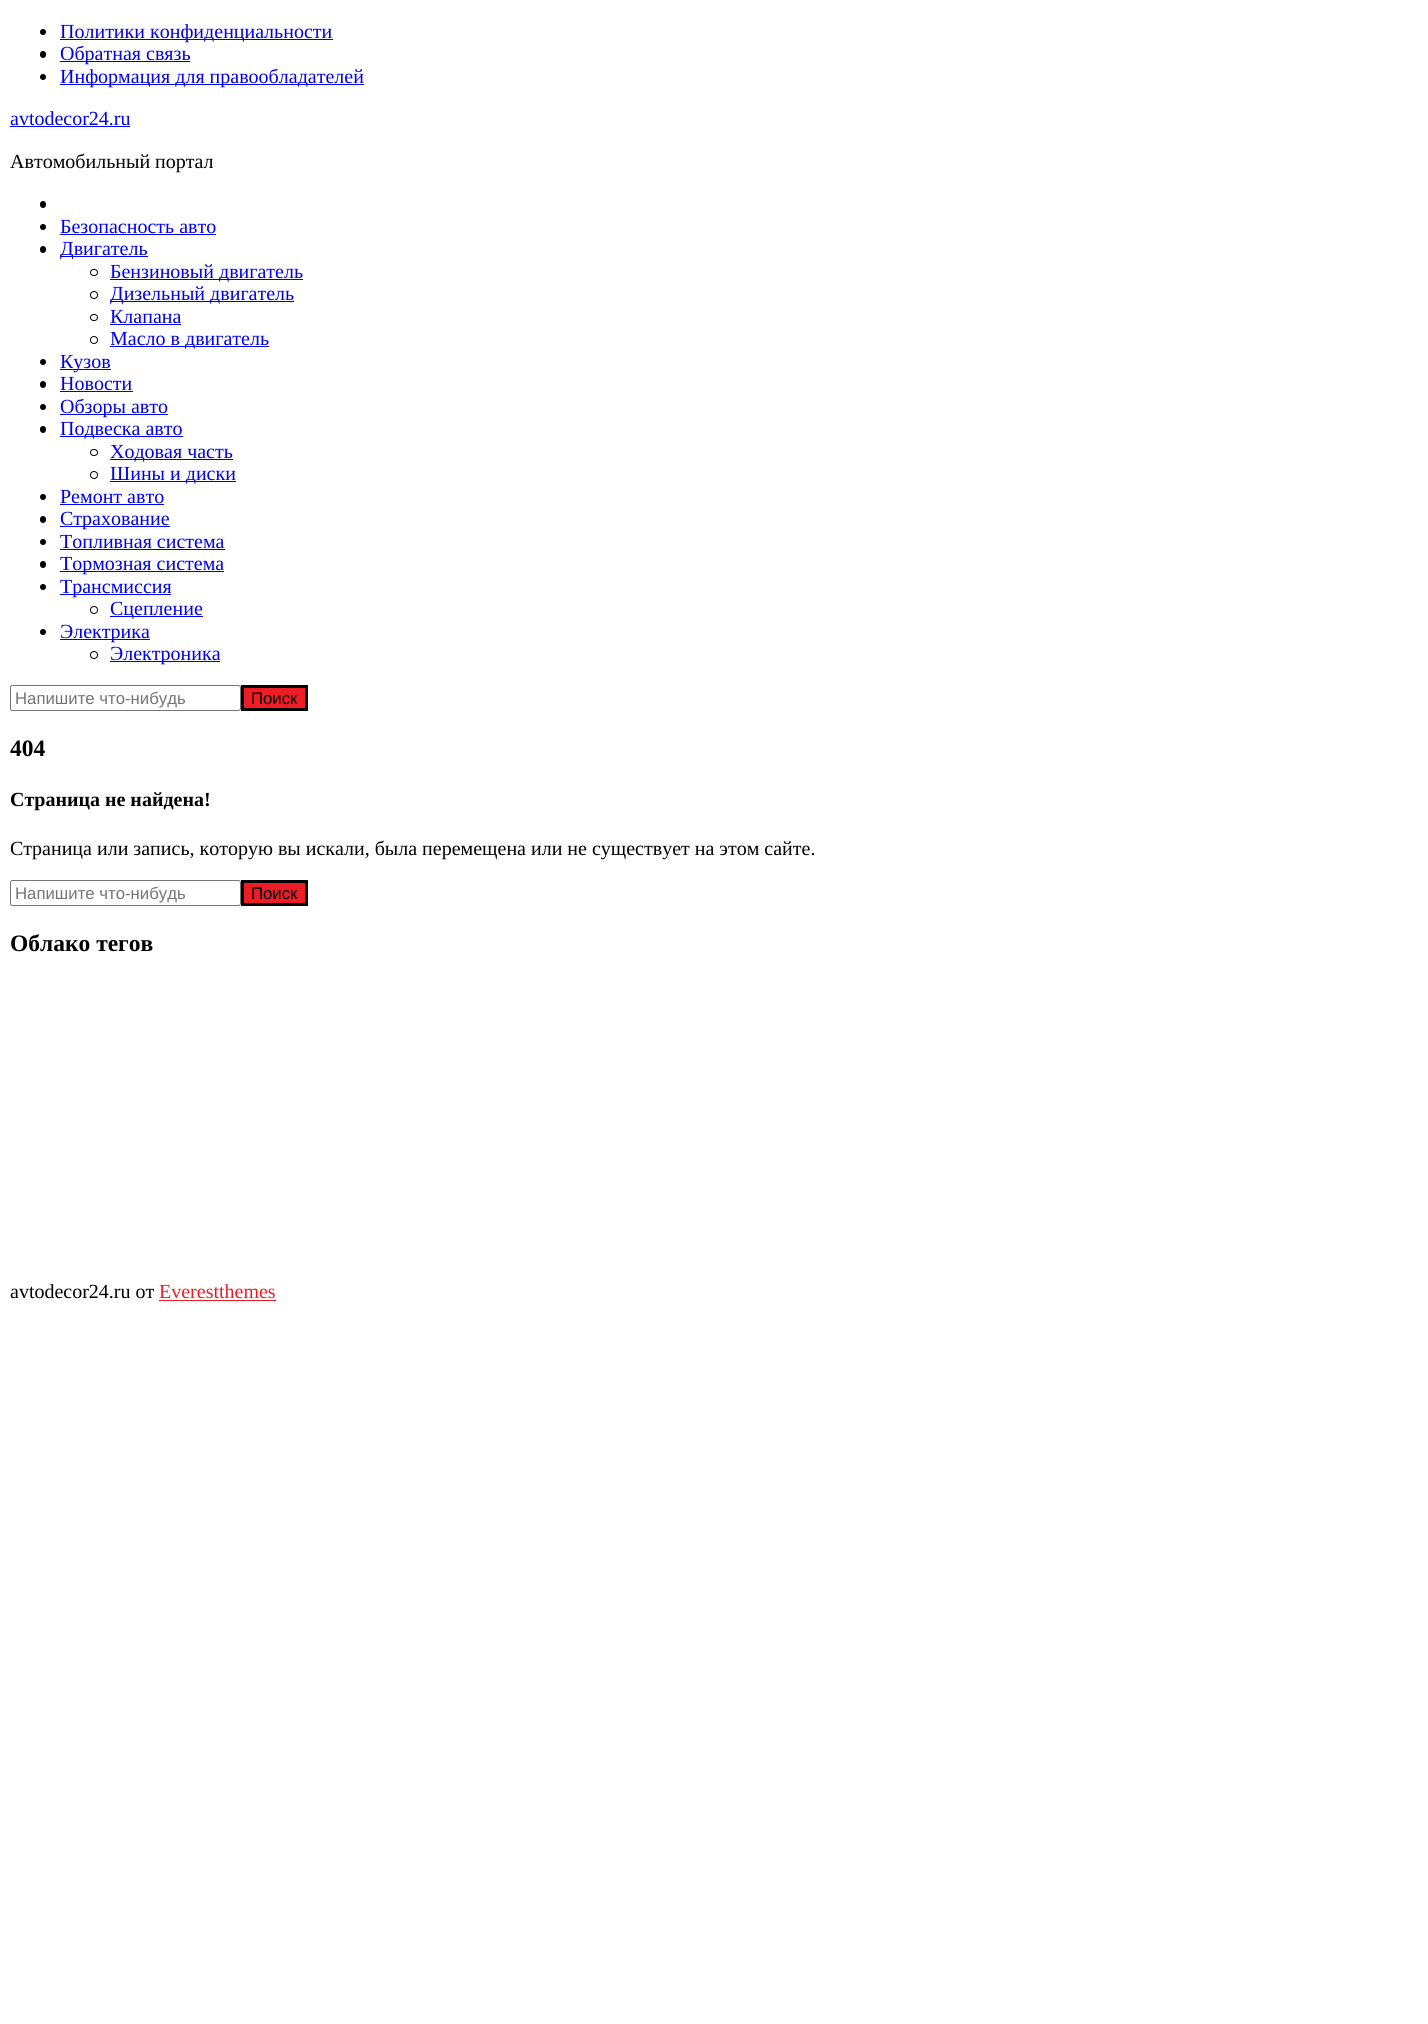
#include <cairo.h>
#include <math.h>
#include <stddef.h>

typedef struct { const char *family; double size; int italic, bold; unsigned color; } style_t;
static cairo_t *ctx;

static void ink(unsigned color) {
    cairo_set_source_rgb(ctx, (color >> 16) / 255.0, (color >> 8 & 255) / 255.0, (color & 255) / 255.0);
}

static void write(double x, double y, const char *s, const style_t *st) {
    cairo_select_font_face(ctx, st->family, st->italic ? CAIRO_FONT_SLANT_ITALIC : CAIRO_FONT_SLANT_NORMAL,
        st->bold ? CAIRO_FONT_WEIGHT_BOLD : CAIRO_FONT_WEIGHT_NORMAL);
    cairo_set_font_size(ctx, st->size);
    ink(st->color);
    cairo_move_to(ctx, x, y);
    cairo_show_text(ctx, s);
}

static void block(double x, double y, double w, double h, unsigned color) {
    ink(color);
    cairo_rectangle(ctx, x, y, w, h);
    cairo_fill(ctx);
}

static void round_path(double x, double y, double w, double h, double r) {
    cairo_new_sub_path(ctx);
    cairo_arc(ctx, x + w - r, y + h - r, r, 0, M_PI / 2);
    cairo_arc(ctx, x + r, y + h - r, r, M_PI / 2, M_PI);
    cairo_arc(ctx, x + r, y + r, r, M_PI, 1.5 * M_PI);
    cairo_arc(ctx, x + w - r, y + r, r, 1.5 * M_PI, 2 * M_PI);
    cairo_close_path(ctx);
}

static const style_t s1 = {"Liberation Serif", 20, 0, 0, 0x0000ee};
static const style_t s2 = {"Liberation Serif", 20, 0, 0, 0x000000};
static const style_t s3 = {"Liberation Sans", 16.75, 0, 0, 0x757575};
static const style_t s4 = {"Liberation Sans", 16.75, 0, 0, 0x000000};
static const style_t s5 = {"Liberation Serif", 23.5, 0, 1, 0x000000};
static const style_t s6 = {"Liberation Serif", 20, 0, 1, 0x000000};
static const style_t s7 = {"Liberation Serif", 20, 0, 0, 0xed1d25};

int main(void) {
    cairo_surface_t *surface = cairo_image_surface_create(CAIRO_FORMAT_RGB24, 1428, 2024);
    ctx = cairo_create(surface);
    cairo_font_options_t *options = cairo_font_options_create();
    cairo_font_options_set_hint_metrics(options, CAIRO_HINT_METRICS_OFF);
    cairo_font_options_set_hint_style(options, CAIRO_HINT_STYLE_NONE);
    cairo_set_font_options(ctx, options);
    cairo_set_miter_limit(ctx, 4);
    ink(0xffffff);
    cairo_paint(ctx);
    ink(0x000000);
    cairo_arc(ctx, 43, 32, 3, 0, 2 * M_PI);
    cairo_fill(ctx);
    block(60, 39, 273, 1, 0x0000ee);
    write(60, 38, "Политики конфиденциальности", &s1);
    ink(0x000000);
    round_path(40, 51, 6, 7, 3);
    cairo_fill(ctx);
    block(60, 61, 130, 1, 0x0000ee);
    write(60, 60, "Обратная связь", &s1);
    ink(0x000000);
    cairo_new_path(ctx);
    cairo_arc(ctx, 43, 77, 3, 0, 2 * M_PI);
    cairo_fill(ctx);
    block(60, 84, 304, 1, 0x0000ee);
    write(60, 83, "Информация для правообладателей", &s1);
    write(10, 125, "avtodecor24.ru", &s1);
    block(10, 126, 120, 1, 0x0000ee);
    write(10, 168, "Автомобильный портал", &s2);
    round_path(40, 201, 6, 7, 3);
    cairo_fill(ctx);
    cairo_arc(ctx, 43, 227, 3, 0, 2 * M_PI);
    cairo_fill(ctx);
    write(60, 233, "Безопасность авто", &s1);
    block(60, 234, 156, 1, 0x0000ee);
    ink(0x000000);
    round_path(40, 246, 6, 7, 3);
    cairo_fill(ctx);
    block(60, 256, 88, 1, 0x0000ee);
    write(60, 255, "Двигатель", &s1);
    round_path(90.5, 269.5, 7, 6, 3);
    ink(0x000000);
    cairo_set_line_width(ctx, 1);
    cairo_stroke(ctx);
    block(110, 279, 193, 1, 0x0000ee);
    write(110, 278, "Бензиновый двигатель", &s1);
    cairo_new_path(ctx);
    cairo_arc(ctx, 94, 295, 3.5, 0, 2 * M_PI);
    ink(0x000000);
    cairo_stroke(ctx);
    block(110, 301, 184, 1, 0x0000ee);
    write(110, 300, "Дизельный двигатель", &s1);
    round_path(90.5, 314.5, 7, 6, 3);
    ink(0x000000);
    cairo_stroke(ctx);
    write(110, 323, "Клапана", &s1);
    block(110, 324, 71, 1, 0x0000ee);
    cairo_new_path(ctx);
    cairo_arc(ctx, 94, 340, 3.5, 0, 2 * M_PI);
    ink(0x000000);
    cairo_stroke(ctx);
    block(110, 346, 159, 1, 0x0000ee);
    write(110, 345, "Масло в двигатель", &s1);
    ink(0x000000);
    cairo_new_path(ctx);
    cairo_arc(ctx, 43, 362, 3, 0, 2 * M_PI);
    cairo_fill(ctx);
    block(60, 369, 51, 1, 0x0000ee);
    write(60, 368, "Кузов", &s1);
    ink(0x000000);
    round_path(40, 381, 6, 7, 3);
    cairo_fill(ctx);
    write(60, 390, "Новости", &s1);
    block(60, 391, 73, 1, 0x0000ee);
    ink(0x000000);
    cairo_new_path(ctx);
    cairo_arc(ctx, 43, 407, 3, 0, 2 * M_PI);
    cairo_fill(ctx);
    block(60, 414, 108, 1, 0x0000ee);
    write(60, 413, "Обзоры авто", &s1);
    ink(0x000000);
    round_path(40, 426, 6, 7, 3);
    cairo_fill(ctx);
    block(60, 436, 123, 1, 0x0000ee);
    write(60, 435, "Подвеска авто", &s1);
    round_path(90.5, 449.5, 7, 6, 3);
    ink(0x000000);
    cairo_stroke(ctx);
    block(110, 459, 123, 1, 0x0000ee);
    write(110, 458, "Ходовая часть", &s1);
    cairo_new_path(ctx);
    cairo_arc(ctx, 94, 475, 3.5, 0, 2 * M_PI);
    ink(0x000000);
    cairo_stroke(ctx);
    block(110, 481, 126, 1, 0x0000ee);
    write(110, 480, "Шины и диски", &s1);
    ink(0x000000);
    cairo_new_path(ctx);
    cairo_arc(ctx, 43, 497, 3, 0, 2 * M_PI);
    cairo_fill(ctx);
    write(60, 503, "Ремонт авто", &s1);
    block(60, 504, 104, 1, 0x0000ee);
    ink(0x000000);
    round_path(40, 516, 6, 7, 3);
    cairo_fill(ctx);
    block(60, 526, 110, 1, 0x0000ee);
    write(60, 525, "Страхование", &s1);
    ink(0x000000);
    cairo_new_path(ctx);
    cairo_arc(ctx, 43, 542, 3, 0, 2 * M_PI);
    cairo_fill(ctx);
    write(60, 548, "Топливная система", &s1);
    block(60, 549, 165, 1, 0x0000ee);
    ink(0x000000);
    round_path(40, 561, 6, 7, 3);
    cairo_fill(ctx);
    block(60, 571, 164, 1, 0x0000ee);
    write(60, 570, "Тормозная система", &s1);
    ink(0x000000);
    cairo_new_path(ctx);
    cairo_arc(ctx, 43, 587, 3, 0, 2 * M_PI);
    cairo_fill(ctx);
    block(60, 594, 111, 1, 0x0000ee);
    write(60, 593, "Трансмиссия", &s1);
    cairo_new_path(ctx);
    cairo_arc(ctx, 94, 610, 3.5, 0, 2 * M_PI);
    ink(0x000000);
    cairo_stroke(ctx);
    block(110, 616, 93, 1, 0x0000ee);
    write(110, 615, "Сцепление", &s1);
    ink(0x000000);
    cairo_new_path(ctx);
    cairo_arc(ctx, 43, 632, 3, 0, 2 * M_PI);
    cairo_fill(ctx);
    block(60, 639, 90, 1, 0x0000ee);
    write(60, 638, "Электрика", &s1);
    cairo_new_path(ctx);
    cairo_arc(ctx, 94, 655, 3.5, 0, 2 * M_PI);
    ink(0x000000);
    cairo_stroke(ctx);
    block(110, 661, 110, 1, 0x0000ee);
    write(110, 660, "Электроника", &s1);
    round_path(10.5, 685.5, 230, 25, 2);
    ink(0x767676);
    cairo_stroke(ctx);
    write(15, 704, "Напишите что-нибудь", &s3);
    ink(0xed1d25);
    cairo_rectangle(ctx, 242.5, 686.5, 64, 23);
    cairo_fill_preserve(ctx);
    ink(0x000000);
    cairo_set_line_width(ctx, 3);
    cairo_stroke(ctx);
    write(251, 704, "Поиск", &s4);
    write(10, 756, "404", &s5);
    write(10, 806, "Страница не найдена!", &s6);
    write(10, 855, "Страница или запись, которую вы искали, была перемещена или не существует на этом сайте.", &s2);
    round_path(10.5, 880.5, 230, 25, 2);
    ink(0x767676);
    cairo_set_line_width(ctx, 1);
    cairo_stroke(ctx);
    write(15, 899, "Напишите что-нибудь", &s3);
    ink(0xed1d25);
    cairo_rectangle(ctx, 242.5, 881.5, 64, 23);
    cairo_fill_preserve(ctx);
    ink(0x000000);
    cairo_set_line_width(ctx, 3);
    cairo_stroke(ctx);
    write(251, 899, "Поиск", &s4);
    write(10, 951, "Облако тегов", &s5);
    write(10, 1298, "avtodecor24.ru от", &s2);
    write(159, 1298, "Everestthemes", &s7);
    block(159, 1300, 117, 1, 0xed1d25);
    cairo_surface_write_to_png(surface, "screenshot.png");
    cairo_font_options_destroy(options);
    cairo_destroy(ctx);
    cairo_surface_destroy(surface);
    return 0;
}
